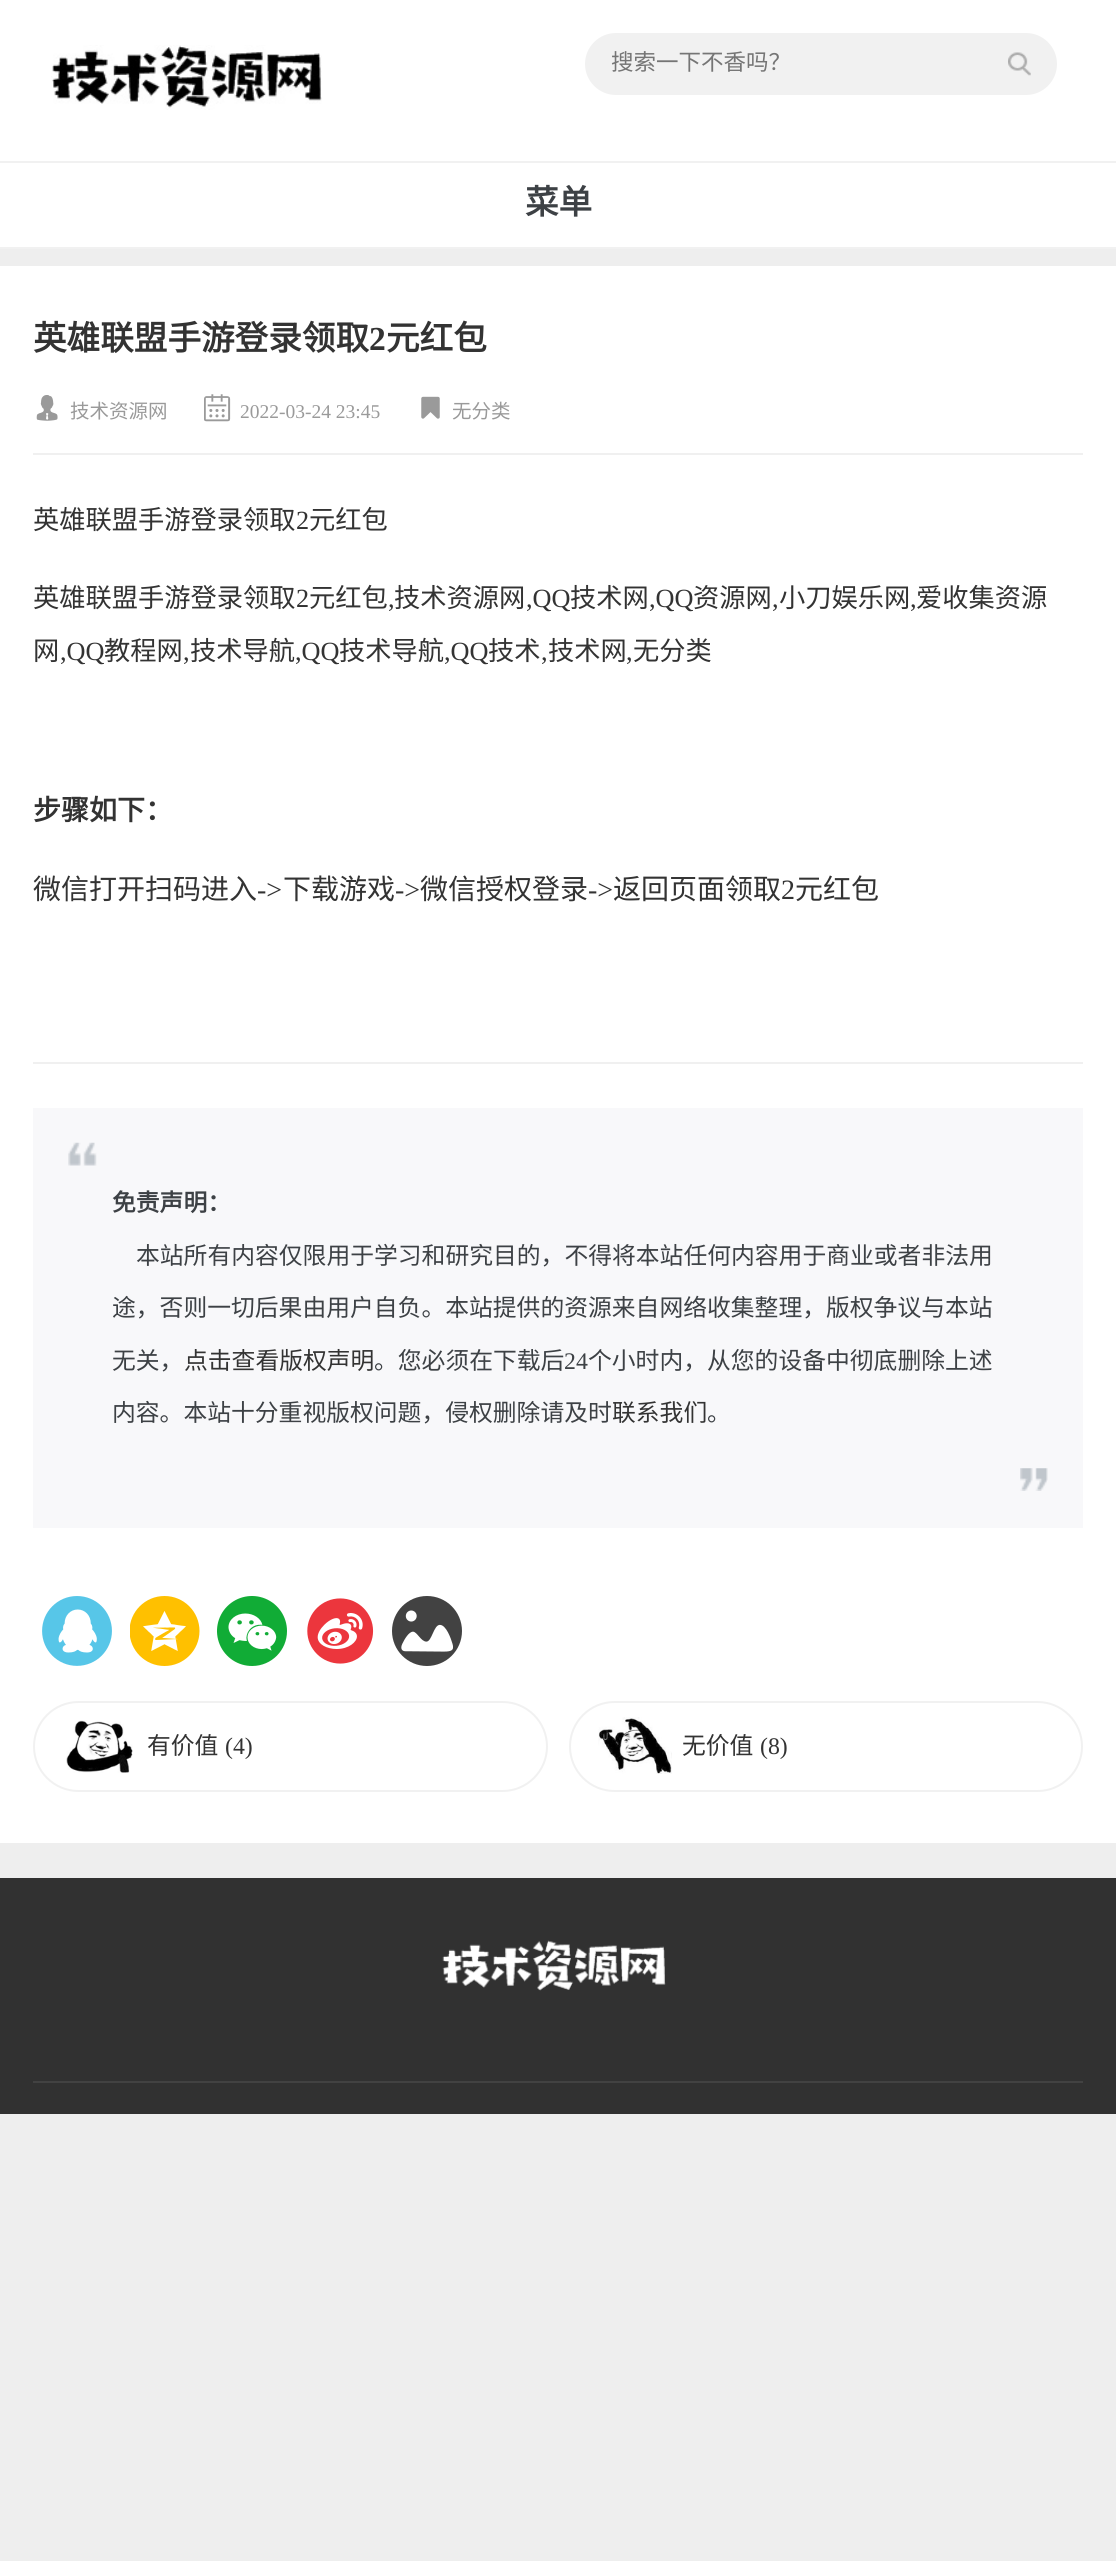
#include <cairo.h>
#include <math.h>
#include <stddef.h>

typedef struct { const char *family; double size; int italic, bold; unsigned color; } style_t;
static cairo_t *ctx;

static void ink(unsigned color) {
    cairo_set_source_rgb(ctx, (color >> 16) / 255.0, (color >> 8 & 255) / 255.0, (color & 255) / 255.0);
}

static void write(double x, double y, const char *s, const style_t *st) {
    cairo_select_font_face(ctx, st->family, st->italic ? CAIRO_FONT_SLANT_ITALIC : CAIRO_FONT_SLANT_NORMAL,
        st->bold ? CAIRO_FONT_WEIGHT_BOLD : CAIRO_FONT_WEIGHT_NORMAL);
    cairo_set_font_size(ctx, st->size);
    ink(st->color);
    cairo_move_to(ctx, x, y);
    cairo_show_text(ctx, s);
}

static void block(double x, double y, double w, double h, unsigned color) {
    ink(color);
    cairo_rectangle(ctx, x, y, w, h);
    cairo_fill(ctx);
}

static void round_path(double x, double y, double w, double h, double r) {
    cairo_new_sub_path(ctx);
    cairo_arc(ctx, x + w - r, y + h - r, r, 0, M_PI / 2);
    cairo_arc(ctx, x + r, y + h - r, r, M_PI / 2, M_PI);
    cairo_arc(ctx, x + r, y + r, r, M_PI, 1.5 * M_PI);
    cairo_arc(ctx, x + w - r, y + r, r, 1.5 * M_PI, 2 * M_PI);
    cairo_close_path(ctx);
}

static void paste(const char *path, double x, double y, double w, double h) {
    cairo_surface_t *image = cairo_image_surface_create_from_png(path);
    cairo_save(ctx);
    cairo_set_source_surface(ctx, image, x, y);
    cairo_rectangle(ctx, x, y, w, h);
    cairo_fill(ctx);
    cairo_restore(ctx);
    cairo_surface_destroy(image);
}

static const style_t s1 = {"Noto Sans CJK SC", 22.5, 0, 0, 0x757575};
static const style_t s2 = {"Noto Sans CJK SC", 33.6, 0, 1, 0x3d4145};
static const style_t s3 = {"Noto Sans CJK SC", 33.6, 0, 1, 0x333333};
static const style_t s4 = {"Liberation Serif", 33.6, 0, 1, 0x333333};
static const style_t s5 = {"Noto Sans CJK SC", 19.5, 0, 0, 0x9a9a9a};
static const style_t s6 = {"Liberation Serif", 19.5, 0, 0, 0x9a9a9a};
static const style_t s7 = {"Noto Sans CJK SC", 26.25, 0, 0, 0x333333};
static const style_t s8 = {"Liberation Serif", 26.25, 0, 0, 0x333333};
static const style_t s9 = {"Noto Sans CJK SC", 28, 0, 1, 0x333333};
static const style_t s10 = {"Noto Sans CJK SC", 28, 0, 0, 0x333333};
static const style_t s11 = {"Liberation Serif", 28, 0, 0, 0x333333};
static const style_t s12 = {"Noto Sans CJK SC", 23.8, 0, 1, 0x3d4145};
static const style_t s13 = {"Noto Sans CJK SC", 23.8, 0, 0, 0x3d4145};
static const style_t s14 = {"Noto Sans CJK SC", 23.8, 0, 0, 0x333333};
static const style_t s15 = {"Liberation Serif", 23.8, 0, 0, 0x3d4145};
static const style_t s16 = {"Liberation Serif", 23.8, 0, 0, 0x333333};

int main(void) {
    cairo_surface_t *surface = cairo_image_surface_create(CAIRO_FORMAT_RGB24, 1116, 2561);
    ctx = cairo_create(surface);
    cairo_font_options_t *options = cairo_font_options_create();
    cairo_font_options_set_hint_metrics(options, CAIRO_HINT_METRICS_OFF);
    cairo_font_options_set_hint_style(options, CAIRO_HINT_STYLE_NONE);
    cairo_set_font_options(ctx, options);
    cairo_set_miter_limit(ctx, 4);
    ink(0xeeeeee);
    cairo_paint(ctx);
    block(0, 0, 1116, 247, 0xffffff);
    block(0, 161, 1116, 2, 0xf1f1f1);
    paste("pic1.png", 51, 45, 271, 65);
    round_path(585, 33, 472, 62, 31);
    cairo_fill(ctx);
    write(611, 70, "搜索一下不香吗？", &s1);
    paste("pic2.png", 1008, 52, 23, 24);
    block(0, 247, 1116, 2, 0xf1f1f1);
    write(525, 214, "菜单", &s2);
    block(0, 266, 1116, 1577, 0xffffff);
    write(33, 350, "英雄联盟手游登录领取", &s3);
    write(369, 350, "2", &s4);
    write(386, 350, "元红包", &s3);
    paste("pic3.png", 36, 395, 22, 26);
    write(70, 418, "技术资源网", &s5);
    paste("pic4.png", 204, 394, 27, 28);
    write(240, 418, "2022-03-24 23:45", &s6);
    paste("pic5.png", 421, 396, 19, 23);
    write(452, 418, "无分类", &s5);
    block(33, 453, 1050, 2, 0xf0f0f0);
    block(33, 1062, 1050, 2, 0xf0f0f0);
    write(33, 529, "英雄联盟手游登录领取", &s7);
    write(296, 529, "2", &s8);
    write(309, 529, "元红包", &s7);
    write(33, 607, "英雄联盟手游登录领取", &s7);
    write(296, 607, "2", &s8);
    write(309, 607, "元红包", &s7);
    write(388, 607, ",", &s8);
    write(394, 607, "技术资源网", &s7);
    write(526, 607, ",QQ", &s8);
    write(570, 607, "技术网", &s7);
    write(649, 607, ",QQ", &s8);
    write(693, 607, "资源网", &s7);
    write(772, 607, ",", &s8);
    write(779, 607, "小刀娱乐网", &s7);
    write(910, 607, ",", &s8);
    write(916, 607, "爱收集资源", &s7);
    write(33, 660, "网", &s7);
    write(60, 660, ",QQ", &s8);
    write(104, 660, "教程网", &s7);
    write(183, 660, ",", &s8);
    write(190, 660, "技术导航", &s7);
    write(295, 660, ",QQ", &s8);
    write(339, 660, "技术导航", &s7);
    write(444, 660, ",QQ", &s8);
    write(488, 660, "技术", &s7);
    write(541, 660, ",", &s8);
    write(548, 660, "技术网", &s7);
    write(626, 660, ",", &s8);
    write(633, 660, "无分类", &s7);
    write(33, 820, "步骤如下：", &s9);
    write(33, 899, "微信打开扫码进入", &s10);
    write(257, 899, "->", &s11);
    write(283, 899, "下载游戏", &s10);
    write(395, 899, "->", &s11);
    write(420, 899, "微信授权登录", &s10);
    write(588, 899, "->", &s11);
    write(613, 899, "返回页面领取", &s10);
    write(781, 899, "2", &s11);
    write(795, 899, "元红包", &s10);
    block(33, 1108, 1050, 420, 0xf8f8fa);
    paste("pic6.png", 68, 1142, 29, 24);
    write(112, 1211, "免责声明：", &s12);
    write(136, 1264, "本站所有内容仅限用于学习和研究目的，不得将本站任何内容用于商业或者非法用", &s13);
    write(112, 1316, "途，否则一切后果由用户自负。本站提供的资源来自网络收集整理，版权争议与本站", &s13);
    write(112, 1369, "无关，", &s13);
    write(184, 1369, "点击查看版权声明", &s14);
    write(374, 1369, "。您必须在下载后", &s13);
    write(564, 1369, "24", &s15);
    write(588, 1369, "个小时内，从您的设备中彻底删除上述", &s13);
    write(112, 1421, "内容。本站十分重视版权问题，侵权删除请及时", &s13);
    write(612, 1421, "联系我们", &s14);
    write(707, 1421, "。", &s13);
    paste("pic7.png", 1020, 1468, 28, 23);
    paste("pic8.png", 42, 1596, 70, 70);
    paste("pic9.png", 130, 1596, 70, 70);
    paste("pic10.png", 217, 1596, 70, 70);
    paste("pic11.png", 307, 1598, 67, 66);
    ink(0x424242);
    cairo_arc(ctx, 427, 1631, 35, 0, 2 * M_PI);
    cairo_fill(ctx);
    paste("pic12.png", 401, 1610, 52, 42);
    paste("pic13.png", 66, 1720, 67, 53);
    round_path(34, 1702, 513, 89, 44.5);
    ink(0xf1f1f1);
    cairo_stroke(ctx);
    write(147, 1754, "有价值", &s14);
    write(225, 1754, "(4)", &s16);
    paste("pic14.png", 598, 1717, 74, 57);
    round_path(570, 1702, 512, 89, 44.5);
    ink(0xf1f1f1);
    cairo_stroke(ctx);
    write(682, 1754, "无价值", &s14);
    write(760, 1754, "(8)", &s16);
    block(0, 1878, 1116, 236, 0x313131);
    block(33, 2081, 1050, 2, 0x424242);
    paste("pic15.png", 442, 1940, 224, 51);
    cairo_surface_write_to_png(surface, "screenshot.png");
    cairo_font_options_destroy(options);
    cairo_destroy(ctx);
    cairo_surface_destroy(surface);
    return 0;
}
